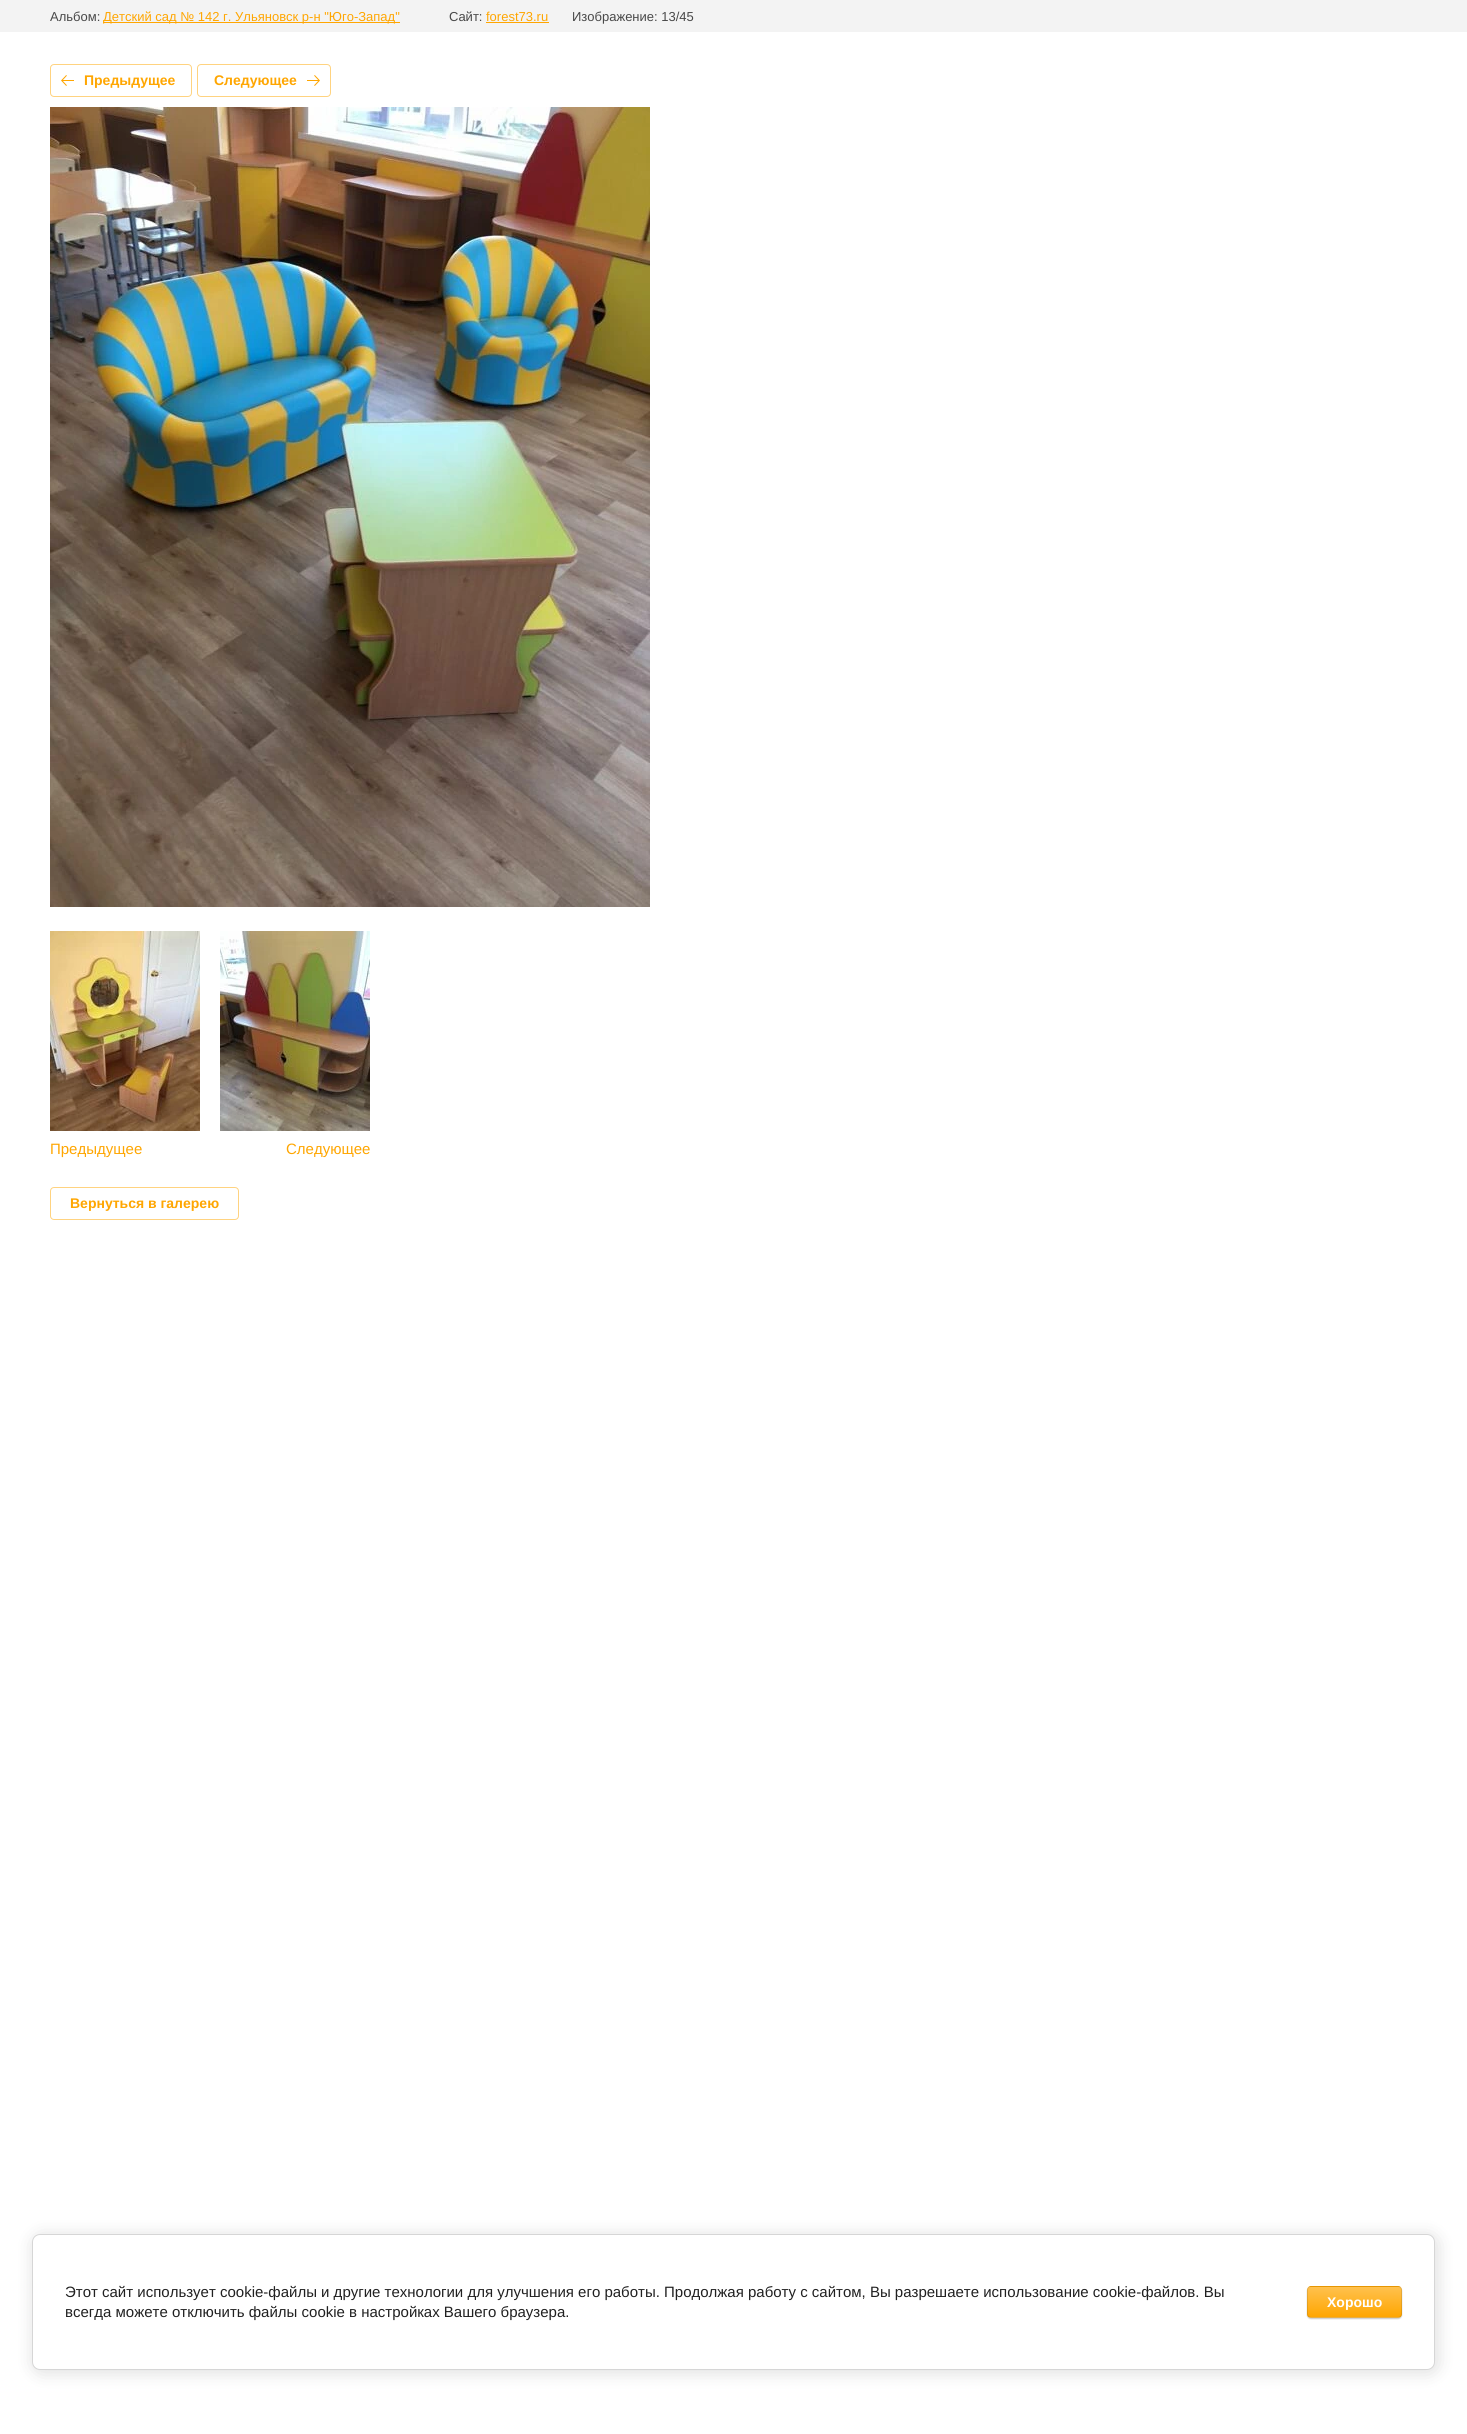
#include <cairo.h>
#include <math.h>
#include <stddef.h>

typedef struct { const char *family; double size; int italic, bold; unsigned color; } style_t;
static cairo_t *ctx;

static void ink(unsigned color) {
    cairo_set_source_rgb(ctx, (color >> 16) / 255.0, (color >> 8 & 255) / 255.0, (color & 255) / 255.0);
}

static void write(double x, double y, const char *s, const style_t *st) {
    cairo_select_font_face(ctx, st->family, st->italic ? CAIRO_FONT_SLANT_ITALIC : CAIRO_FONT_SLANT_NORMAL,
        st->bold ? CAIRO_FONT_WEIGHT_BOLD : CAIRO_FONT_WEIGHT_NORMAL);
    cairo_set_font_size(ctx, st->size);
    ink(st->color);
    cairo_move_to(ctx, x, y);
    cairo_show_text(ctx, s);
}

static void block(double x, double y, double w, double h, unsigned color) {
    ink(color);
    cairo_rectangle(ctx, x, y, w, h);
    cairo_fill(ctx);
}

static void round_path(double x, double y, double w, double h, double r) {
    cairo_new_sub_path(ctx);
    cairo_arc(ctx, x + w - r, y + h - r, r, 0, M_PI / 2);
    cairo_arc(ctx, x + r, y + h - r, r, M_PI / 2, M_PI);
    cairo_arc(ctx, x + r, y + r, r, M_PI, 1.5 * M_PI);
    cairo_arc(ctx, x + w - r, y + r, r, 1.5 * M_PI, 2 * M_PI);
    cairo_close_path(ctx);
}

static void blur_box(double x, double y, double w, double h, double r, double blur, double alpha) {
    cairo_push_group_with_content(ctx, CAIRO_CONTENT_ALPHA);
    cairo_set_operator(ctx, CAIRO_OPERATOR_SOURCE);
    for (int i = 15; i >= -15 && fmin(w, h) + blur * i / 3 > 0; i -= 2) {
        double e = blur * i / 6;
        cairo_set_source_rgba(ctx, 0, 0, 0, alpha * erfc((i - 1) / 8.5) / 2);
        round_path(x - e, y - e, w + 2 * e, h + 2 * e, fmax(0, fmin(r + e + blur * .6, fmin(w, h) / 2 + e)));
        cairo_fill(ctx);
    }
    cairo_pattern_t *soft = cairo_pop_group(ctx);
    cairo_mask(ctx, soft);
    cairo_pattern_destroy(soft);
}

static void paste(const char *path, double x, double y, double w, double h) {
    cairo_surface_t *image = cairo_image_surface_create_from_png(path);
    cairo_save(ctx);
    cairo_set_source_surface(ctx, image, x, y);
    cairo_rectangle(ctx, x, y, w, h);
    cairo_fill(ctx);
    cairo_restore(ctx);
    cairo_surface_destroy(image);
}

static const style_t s1 = {"Liberation Sans", 13, 0, 0, 0x484848};
static const style_t s2 = {"Liberation Sans", 13, 0, 0, 0xffa601};
static const style_t s3 = {"Liberation Sans", 14, 0, 1, 0xffa601};
static const style_t s4 = {"Liberation Sans", 15, 0, 0, 0xffa601};
static const style_t s5 = {"Liberation Sans", 15, 0, 0, 0x212121};
static const style_t s6 = {"Liberation Sans", 14, 0, 1, 0xffffff};

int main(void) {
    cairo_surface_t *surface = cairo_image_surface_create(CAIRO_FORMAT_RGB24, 1467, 2434);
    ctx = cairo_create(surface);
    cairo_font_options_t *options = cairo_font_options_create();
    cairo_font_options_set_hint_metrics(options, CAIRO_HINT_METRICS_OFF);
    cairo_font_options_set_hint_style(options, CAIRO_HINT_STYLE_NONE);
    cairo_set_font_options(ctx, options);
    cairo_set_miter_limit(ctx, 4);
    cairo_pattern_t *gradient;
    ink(0xffffff);
    cairo_paint(ctx);
    block(0, 0, 1467, 32, 0xf3f3f3);
    write(50, 21, "Альбом:", &s1);
    block(103, 22, 297, 1, 0xffa601);
    write(103, 21, "Детский сад № 142 г. Ульяновск р-н \"Юго-Запад\"", &s2);
    write(449, 21, "Сайт:", &s1);
    write(486, 21, "forest73.ru", &s2);
    block(486, 22, 63, 1, 0xffa601);
    write(572, 21, "Изображение: 13/45", &s1);
    round_path(50.5, 64.5, 141, 32, 3.5);
    ink(0xffd380);
    cairo_set_line_width(ctx, 1);
    cairo_stroke(ctx);
    paste("pic1.png", 61, 75, 13, 11);
    write(84, 85, "Предыдущее", &s3);
    round_path(197.5, 64.5, 133, 32, 3.5);
    ink(0xffd380);
    cairo_stroke(ctx);
    write(214, 85, "Следующее", &s3);
    paste("pic2.png", 307, 75, 13, 11);
    paste("pic3.png", 50, 107, 600, 800);
    paste("pic4.png", 50, 931, 150, 200);
    write(50, 1154, "Предыдущее", &s4);
    paste("pic5.png", 220, 931, 150, 200);
    write(286, 1154, "Следующее", &s4);
    round_path(50.5, 1187.5, 188, 32, 3.5);
    ink(0xffd380);
    cairo_stroke(ctx);
    write(70, 1208, "Вернуться в галерею", &s3);
    ink(0x000000);
    blur_box(34, 2236, 1403, 136, 8, 9, 0.14);
    ink(0xffffff);
    round_path(32.5, 2234.5, 1402, 135, 7.5);
    cairo_fill_preserve(ctx);
    ink(0xd6d6d6);
    cairo_stroke(ctx);
    write(65, 2297, "Этот сайт использует cookie-файлы и другие технологии для улучшения его работы. Продолжая работу с сайтом, Вы разрешаете использование cookie-файлов. Вы", &s5);
    write(65, 2317, "всегда можете отключить файлы cookie в настройках Вашего браузера.", &s5);
    ink(0x000000);
    blur_box(1307, 2287, 95, 32, 4, 0.5, 0.2);
    cairo_save(ctx);
    round_path(1307, 2286, 95, 32, 4);
    cairo_clip(ctx);
    gradient = cairo_pattern_create_linear(1355, 2257, 1355, 2287);
    cairo_pattern_add_color_stop_rgba(gradient, 0, 1, 0.757, 0.306, 1);
    cairo_pattern_add_color_stop_rgba(gradient, 1, 1, 0.651, 0.004, 1);
    cairo_set_source(ctx, gradient);
    cairo_pattern_destroy(gradient);
    cairo_rectangle(ctx, 1307, 2286, 95, 1);
    cairo_fill(ctx);
    gradient = cairo_pattern_create_linear(1355, 2287, 1355, 2317);
    cairo_pattern_add_color_stop_rgba(gradient, 0, 1, 0.757, 0.306, 1);
    cairo_pattern_add_color_stop_rgba(gradient, 1, 1, 0.651, 0.004, 1);
    cairo_set_source(ctx, gradient);
    cairo_pattern_destroy(gradient);
    cairo_rectangle(ctx, 1307, 2287, 95, 30);
    cairo_fill(ctx);
    gradient = cairo_pattern_create_linear(1355, 2317, 1355, 2347);
    cairo_pattern_add_color_stop_rgba(gradient, 0, 1, 0.757, 0.306, 1);
    cairo_pattern_add_color_stop_rgba(gradient, 1, 1, 0.651, 0.004, 1);
    cairo_set_source(ctx, gradient);
    cairo_pattern_destroy(gradient);
    cairo_rectangle(ctx, 1307, 2317, 95, 1);
    cairo_fill(ctx);
    cairo_restore(ctx);
    round_path(1307.5, 2286.5, 94, 31, 3.5);
    cairo_set_source_rgba(ctx, 0, 0, 0, 0.1);
    cairo_stroke(ctx);
    write(1327, 2307, "Хорошо", &s6);
    cairo_surface_write_to_png(surface, "screenshot.png");
    cairo_font_options_destroy(options);
    cairo_destroy(ctx);
    cairo_surface_destroy(surface);
    return 0;
}
